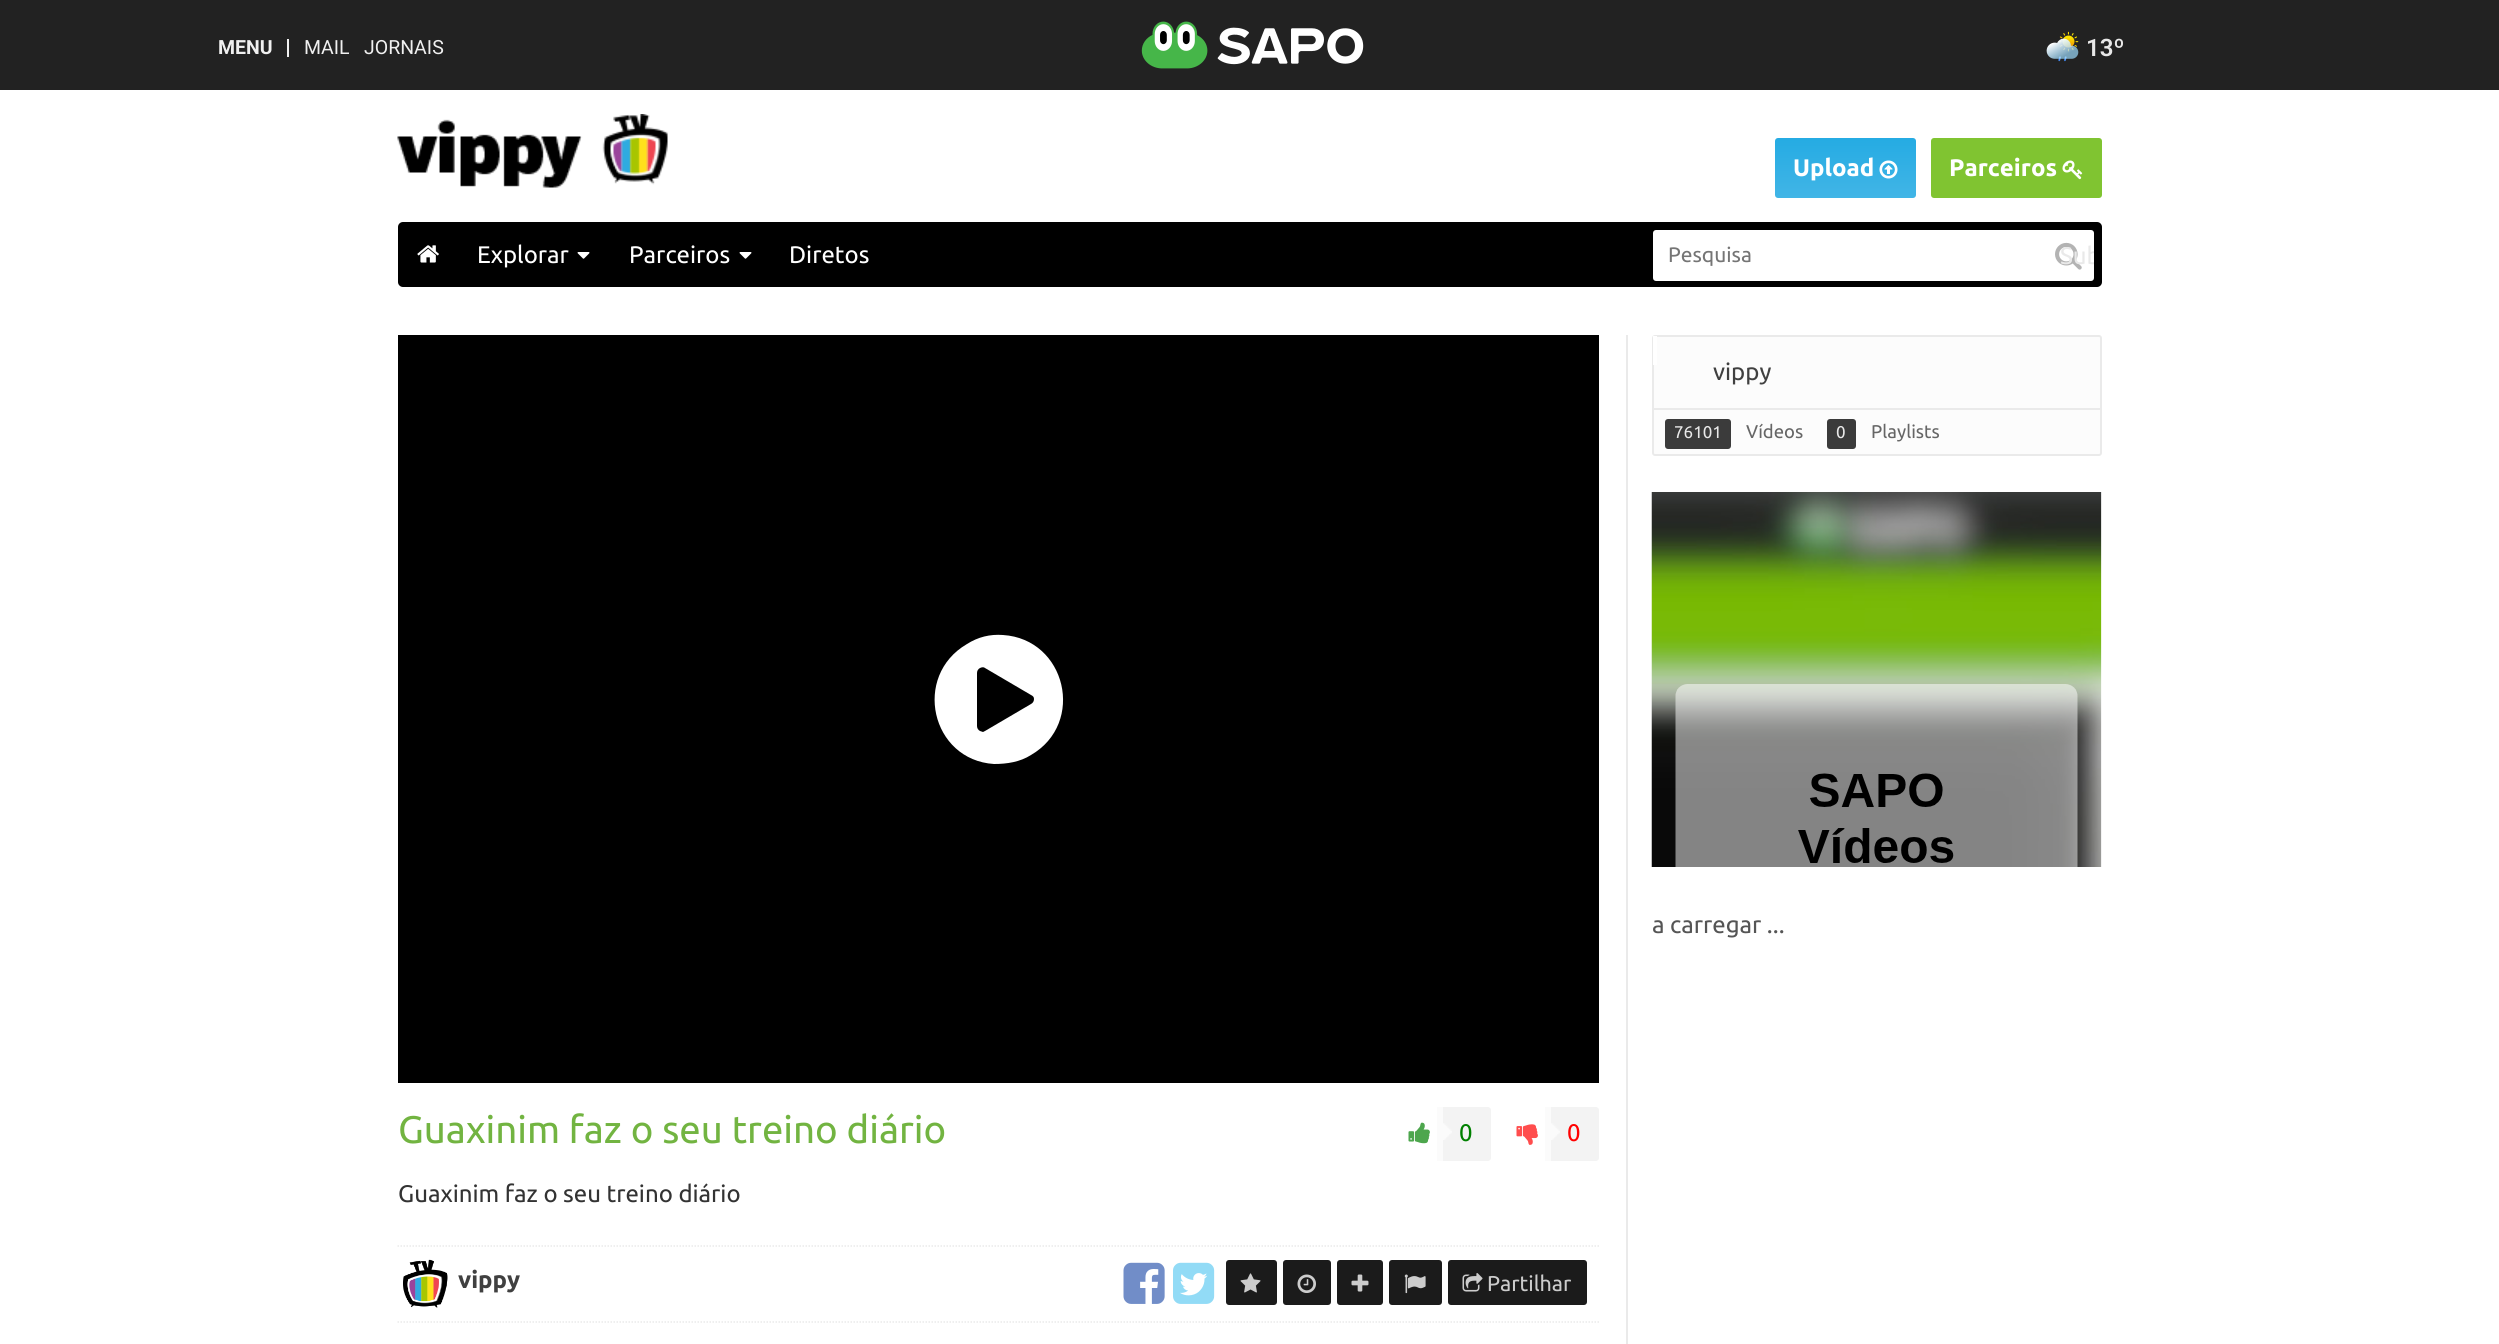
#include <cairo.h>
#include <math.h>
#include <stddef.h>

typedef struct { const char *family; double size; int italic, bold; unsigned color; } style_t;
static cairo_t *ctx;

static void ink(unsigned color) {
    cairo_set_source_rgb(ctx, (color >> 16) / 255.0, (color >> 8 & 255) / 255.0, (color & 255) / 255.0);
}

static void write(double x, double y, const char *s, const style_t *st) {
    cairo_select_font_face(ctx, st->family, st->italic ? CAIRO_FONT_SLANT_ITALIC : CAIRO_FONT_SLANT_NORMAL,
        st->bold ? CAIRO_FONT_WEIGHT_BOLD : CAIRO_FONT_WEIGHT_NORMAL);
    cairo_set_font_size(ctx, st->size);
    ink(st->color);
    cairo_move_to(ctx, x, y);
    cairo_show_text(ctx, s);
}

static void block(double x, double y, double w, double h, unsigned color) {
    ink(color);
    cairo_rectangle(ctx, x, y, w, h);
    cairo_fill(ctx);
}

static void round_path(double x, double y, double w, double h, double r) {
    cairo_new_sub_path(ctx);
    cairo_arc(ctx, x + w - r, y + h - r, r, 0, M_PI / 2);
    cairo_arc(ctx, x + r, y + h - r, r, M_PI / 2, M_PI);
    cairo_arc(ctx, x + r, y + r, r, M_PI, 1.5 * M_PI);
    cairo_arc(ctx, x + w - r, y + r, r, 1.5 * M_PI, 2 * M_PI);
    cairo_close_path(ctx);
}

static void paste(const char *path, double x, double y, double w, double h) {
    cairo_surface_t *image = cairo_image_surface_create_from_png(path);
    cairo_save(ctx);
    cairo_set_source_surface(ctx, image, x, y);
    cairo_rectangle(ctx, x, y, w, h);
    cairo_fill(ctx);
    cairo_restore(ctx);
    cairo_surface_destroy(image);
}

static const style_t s1 = {"Roboto", 19.5, 0, 1, 0xf0f0f0};
static const style_t s2 = {"Roboto", 19.5, 0, 0, 0xf0f0f0};
static const style_t s3 = {"Roboto SemiBold", 24, 0, 0, 0xe9e9e9};
static const style_t s4 = {"Ubuntu", 24, 0, 1, 0xffffff};
static const style_t s5 = {"Ubuntu", 24, 0, 0, 0xffffff};
static const style_t s6 = {"Ubuntu", 21, 0, 0, 0x757575};
static const style_t s7 = {"Ubuntu", 24, 0, 0, 0xe9e9e9};
static const style_t s8 = {"Ubuntu", 24, 0, 0, 0x404040};
static const style_t s9 = {"Ubuntu", 17, 0, 0, 0xe9e9e9};
static const style_t s10 = {"Ubuntu", 18.5, 0, 0, 0x666666};
static const style_t s11 = {"Ubuntu", 24, 0, 0, 0x555555};
static const style_t s12 = {"Ubuntu", 38.4, 0, 0, 0x72b441};
static const style_t s13 = {"Ubuntu", 24, 0, 0, 0x008000};
static const style_t s14 = {"Ubuntu", 24, 0, 0, 0xff0000};
static const style_t s15 = {"Ubuntu", 24, 0, 0, 0x333333};
static const style_t s16 = {"Ubuntu", 24, 0, 1, 0x404040};
static const style_t s17 = {"Ubuntu", 21.5, 0, 0, 0xcccccc};

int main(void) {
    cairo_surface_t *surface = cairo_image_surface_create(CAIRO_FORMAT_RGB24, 2499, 1344);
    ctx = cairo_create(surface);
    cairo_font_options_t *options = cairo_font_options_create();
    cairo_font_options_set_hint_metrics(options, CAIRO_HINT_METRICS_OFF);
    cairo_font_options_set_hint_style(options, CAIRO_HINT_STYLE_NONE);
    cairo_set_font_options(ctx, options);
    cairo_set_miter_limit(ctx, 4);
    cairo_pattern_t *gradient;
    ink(0xffffff);
    cairo_paint(ctx);
    block(0, 0, 2499, 90, 0x222222);
    write(218, 54, "MENU", &s1);
    block(287, 39, 2, 18, 0xf0f0f0);
    write(304, 54, "MAIL", &s2);
    write(364, 54, "JORNAIS", &s2);
    paste("pic1.png", 1141, 21, 223, 48);
    paste("pic2.png", 2046, 31, 33, 31);
    write(2086, 56, "13º", &s3);
    paste("pic3.png", 397, 114, 271, 74);
    gradient = cairo_pattern_create_linear(1845, 138, 1845, 198);
    cairo_pattern_add_color_stop_rgba(gradient, 0, 0.145, 0.671, 0.89, 1);
    cairo_pattern_add_color_stop_rgba(gradient, 1, 0.255, 0.71, 0.902, 1);
    cairo_set_source(ctx, gradient);
    cairo_pattern_destroy(gradient);
    round_path(1775, 138, 141, 60, 3);
    cairo_fill(ctx);
    write(1793, 176, "Upload", &s4);
    paste("pic4.png", 1879, 160, 19, 19);
    ink(0x80c431);
    round_path(1931, 138, 171, 60, 3);
    cairo_fill(ctx);
    write(1949, 176, "Parceiros", &s4);
    paste("pic5.png", 2062, 160, 21, 20);
    ink(0x000000);
    round_path(398, 222, 1704, 65, 5);
    cairo_fill(ctx);
    paste("pic6.png", 417, 245, 22, 18);
    write(477, 263, "Explorar", &s5);
    paste("pic7.png", 577, 252, 13, 7);
    write(629, 263, "Parceiros", &s5);
    paste("pic7.png", 739, 252, 13, 7);
    write(789, 263, "Diretos", &s5);
    round_path(1653, 230, 441, 51, 3);
    cairo_fill(ctx);
    paste("pic8.png", 2055, 242, 27, 28);
    write(1668, 262, "Pesquisa", &s6);
    cairo_save(ctx);
    cairo_rectangle(ctx, 2051, 230, 43, 51);
    cairo_clip(ctx);
    write(2060, 264, "Sub", &s7);
    cairo_restore(ctx);
    block(1626, 335, 2, 1009, 0xeaeaea);
    ink(0xfcfcfc);
    round_path(1653, 336, 448, 119, 2);
    cairo_fill_preserve(ctx);
    ink(0xeaeaea);
    cairo_stroke(ctx);
    block(1655, 336, 2, 29, 0xffffff);
    block(1653, 363, 3, 2, 0xffffff);
    block(1653, 336, 2, 29, 0xffffff);
    write(1713, 380, "vippy", &s8);
    block(1653, 408, 447, 2, 0xeaeaea);
    ink(0x3b3b3b);
    round_path(1665, 419, 66, 30, 3);
    cairo_fill(ctx);
    write(1674, 438, "76101", &s9);
    write(1746, 438, "Vídeos", &s10);
    ink(0x3b3b3b);
    round_path(1827, 419, 29, 30, 3);
    cairo_fill(ctx);
    write(1836, 438, "0", &s9);
    write(1871, 438, "Playlists", &s10);
    paste("pic9.png", 1651, 492, 451, 375);
    write(1652, 933, "a carregar ...", &s11);
    block(398, 335, 1201, 748, 0x000000);
    ink(0xffffff);
    cairo_new_path(ctx);
    cairo_move_to(ctx, 967, 644);
    cairo_curve_to(ctx, 978, 637, 990, 634, 1003, 635);
    cairo_curve_to(ctx, 1066, 639, 1086, 723, 1031, 755);
    cairo_curve_to(ctx, 1020, 762, 1007, 764, 994, 764);
    cairo_curve_to(ctx, 931, 760, 912, 676, 967, 644);
    cairo_close_path(ctx);
    cairo_move_to(ctx, 1031, 704);
    cairo_curve_to(ctx, 1033, 703, 1034, 701, 1034, 699);
    cairo_curve_to(ctx, 1034, 697, 1033, 696, 1031, 695);
    cairo_line_to(ctx, 985, 668);
    cairo_curve_to(ctx, 984, 667, 982, 667, 980, 668);
    cairo_curve_to(ctx, 978, 669, 977, 671, 977, 673);
    cairo_line_to(ctx, 977, 726);
    cairo_curve_to(ctx, 977, 728, 978, 730, 980, 731);
    cairo_line_to(ctx, 983, 732);
    cairo_line_to(ctx, 985, 731);
    cairo_close_path(ctx);
    cairo_fill(ctx);
    write(398, 1143, "Guaxinim faz o seu treino diário", &s12);
    ink(0xf3f3f3);
    cairo_new_path(ctx);
    cairo_move_to(ctx, 1437, 1107);
    cairo_line_to(ctx, 1488, 1107);
    cairo_curve_to(ctx, 1489.5, 1107, 1491, 1108.5, 1491, 1110);
    cairo_line_to(ctx, 1491, 1158);
    cairo_curve_to(ctx, 1491, 1159.5, 1489.5, 1161, 1488, 1161);
    cairo_line_to(ctx, 1437, 1161);
    cairo_close_path(ctx);
    cairo_fill(ctx);
    cairo_set_source_rgba(ctx, 1, 1, 1, 0.7);
    cairo_new_path(ctx);
    cairo_move_to(ctx, 1392, 1107);
    cairo_line_to(ctx, 1443, 1107);
    cairo_line_to(ctx, 1443, 1161);
    cairo_line_to(ctx, 1392, 1161);
    cairo_curve_to(ctx, 1390.5, 1161, 1389, 1159.5, 1389, 1158);
    cairo_line_to(ctx, 1389, 1110);
    cairo_curve_to(ctx, 1389, 1108.5, 1390.5, 1107, 1392, 1107);
    cairo_close_path(ctx);
    cairo_fill(ctx);
    paste("pic10.png", 1408, 1122, 22, 22);
    paste("pic11.png", 1443, 1123, 9, 17);
    write(1459, 1141, "0", &s13);
    ink(0xf3f3f3);
    cairo_new_path(ctx);
    cairo_move_to(ctx, 1545, 1107);
    cairo_line_to(ctx, 1596, 1107);
    cairo_curve_to(ctx, 1597.5, 1107, 1599, 1108.5, 1599, 1110);
    cairo_line_to(ctx, 1599, 1158);
    cairo_curve_to(ctx, 1599, 1159.5, 1597.5, 1161, 1596, 1161);
    cairo_line_to(ctx, 1545, 1161);
    cairo_close_path(ctx);
    cairo_fill(ctx);
    cairo_set_source_rgba(ctx, 1, 1, 1, 0.7);
    cairo_new_path(ctx);
    cairo_move_to(ctx, 1500, 1107);
    cairo_line_to(ctx, 1551, 1107);
    cairo_line_to(ctx, 1551, 1161);
    cairo_line_to(ctx, 1500, 1161);
    cairo_curve_to(ctx, 1498.5, 1161, 1497, 1159.5, 1497, 1158);
    cairo_line_to(ctx, 1497, 1110);
    cairo_curve_to(ctx, 1497, 1108.5, 1498.5, 1107, 1500, 1107);
    cairo_close_path(ctx);
    cairo_fill(ctx);
    paste("pic12.png", 1516, 1124, 22, 21);
    paste("pic11.png", 1551, 1123, 9, 17);
    write(1567, 1141, "0", &s14);
    write(398, 1202, "Guaxinim faz o seu treino diário", &s15);
    cairo_new_path(ctx);
    cairo_move_to(ctx, 397.5, 1246);
    cairo_line_to(ctx, 1599, 1246);
    ink(0xeaeaea);
    cairo_set_line_width(ctx, 1.5);
    cairo_set_dash(ctx, (double[]){1.5, 1.5}, 2, 0);
    cairo_stroke(ctx);
    cairo_new_path(ctx);
    cairo_move_to(ctx, 397.5, 1322);
    cairo_line_to(ctx, 1599, 1322);
    cairo_stroke(ctx);
    paste("pic13.png", 403, 1259, 45, 49);
    write(458, 1288, "vippy", &s16);
    paste("pic14.png", 1123, 1262, 42, 42);
    paste("pic15.png", 1173, 1262, 42, 42);
    ink(0x1b1b1b);
    round_path(1226, 1260, 51, 45, 3);
    cairo_fill(ctx);
    paste("pic16.png", 1240, 1273, 21, 20);
    round_path(1283, 1260, 48, 45, 3);
    cairo_fill(ctx);
    paste("pic17.png", 1297, 1274, 19, 19);
    round_path(1337, 1260, 46, 45, 3);
    cairo_fill(ctx);
    paste("pic18.png", 1351, 1274, 18, 18);
    round_path(1389, 1260, 53, 45, 3);
    cairo_fill(ctx);
    paste("pic19.png", 1404, 1274, 22, 20);
    round_path(1448, 1260, 139, 45, 3);
    cairo_fill(ctx);
    paste("pic20.png", 1462, 1273, 21, 19);
    write(1487, 1291, "Partilhar", &s17);
    cairo_surface_write_to_png(surface, "screenshot.png");
    cairo_font_options_destroy(options);
    cairo_destroy(ctx);
    cairo_surface_destroy(surface);
    return 0;
}
